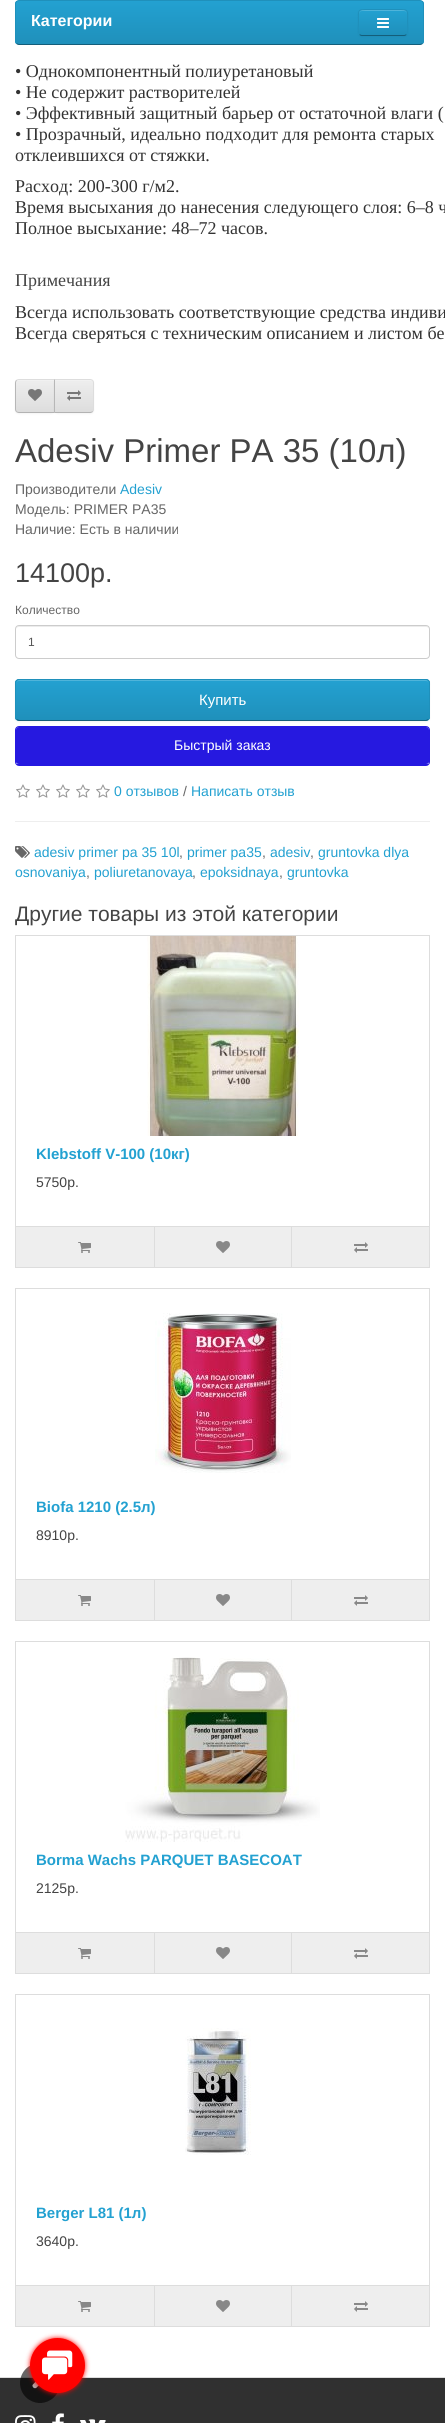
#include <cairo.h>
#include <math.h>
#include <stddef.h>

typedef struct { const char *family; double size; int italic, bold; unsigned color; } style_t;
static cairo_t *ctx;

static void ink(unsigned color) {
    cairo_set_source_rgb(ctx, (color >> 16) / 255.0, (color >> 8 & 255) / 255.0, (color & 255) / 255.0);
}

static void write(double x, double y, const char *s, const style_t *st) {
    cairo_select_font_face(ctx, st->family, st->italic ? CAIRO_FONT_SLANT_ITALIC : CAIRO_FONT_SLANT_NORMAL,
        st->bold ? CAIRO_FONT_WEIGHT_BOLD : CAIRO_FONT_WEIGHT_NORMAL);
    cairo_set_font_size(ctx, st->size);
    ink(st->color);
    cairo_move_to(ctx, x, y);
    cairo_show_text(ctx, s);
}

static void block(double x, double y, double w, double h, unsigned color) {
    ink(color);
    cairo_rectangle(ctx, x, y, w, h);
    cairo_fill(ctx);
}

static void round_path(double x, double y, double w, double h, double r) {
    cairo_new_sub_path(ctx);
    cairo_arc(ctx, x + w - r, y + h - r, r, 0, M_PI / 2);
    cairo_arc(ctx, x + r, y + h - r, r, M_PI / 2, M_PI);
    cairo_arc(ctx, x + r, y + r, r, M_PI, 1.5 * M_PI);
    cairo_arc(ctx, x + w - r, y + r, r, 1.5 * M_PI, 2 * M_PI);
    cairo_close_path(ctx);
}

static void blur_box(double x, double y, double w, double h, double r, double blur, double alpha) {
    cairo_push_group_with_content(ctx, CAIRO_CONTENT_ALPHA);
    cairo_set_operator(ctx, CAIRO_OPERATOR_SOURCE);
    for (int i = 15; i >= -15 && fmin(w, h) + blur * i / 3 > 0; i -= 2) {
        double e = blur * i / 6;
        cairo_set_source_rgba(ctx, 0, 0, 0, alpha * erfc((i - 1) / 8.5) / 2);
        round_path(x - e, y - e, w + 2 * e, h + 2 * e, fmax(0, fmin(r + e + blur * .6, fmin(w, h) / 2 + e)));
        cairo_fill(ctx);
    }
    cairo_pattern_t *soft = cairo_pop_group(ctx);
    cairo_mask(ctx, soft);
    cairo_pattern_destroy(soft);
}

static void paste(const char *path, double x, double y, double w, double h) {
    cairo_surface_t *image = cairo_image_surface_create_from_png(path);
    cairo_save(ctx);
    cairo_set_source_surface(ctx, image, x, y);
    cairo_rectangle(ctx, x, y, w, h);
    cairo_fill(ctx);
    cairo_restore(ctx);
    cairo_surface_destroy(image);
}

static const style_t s1 = {"Liberation Sans", 16, 0, 1, 0xffffff};
static const style_t s2 = {"Liberation Serif", 18, 0, 0, 0x333333};
static const style_t s3 = {"Liberation Serif", 18, 0, 0, 0x444444};
static const style_t s4 = {"Liberation Sans", 33, 0, 0, 0x444444};
static const style_t s5 = {"Liberation Sans", 14, 0, 0, 0x666666};
static const style_t s6 = {"Liberation Sans", 14, 0, 0, 0x23a1d1};
static const style_t s7 = {"Liberation Sans", 27, 0, 0, 0x444444};
static const style_t s8 = {"Liberation Sans", 12, 0, 0, 0x666666};
static const style_t s9 = {"Liberation Sans", 12, 0, 0, 0x555555};
static const style_t s10 = {"Liberation Sans", 15, 0, 0, 0xffffff};
static const style_t s11 = {"Liberation Sans", 14, 0, 0, 0xffffff};
static const style_t s12 = {"Liberation Sans", 21, 0, 0, 0x444444};
static const style_t s13 = {"Liberation Sans", 15, 0, 1, 0x23a1d1};
static const style_t s14 = {"Liberation Sans", 14, 0, 0, 0x444444};

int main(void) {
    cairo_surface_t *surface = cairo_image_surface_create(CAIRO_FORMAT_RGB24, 445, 2423);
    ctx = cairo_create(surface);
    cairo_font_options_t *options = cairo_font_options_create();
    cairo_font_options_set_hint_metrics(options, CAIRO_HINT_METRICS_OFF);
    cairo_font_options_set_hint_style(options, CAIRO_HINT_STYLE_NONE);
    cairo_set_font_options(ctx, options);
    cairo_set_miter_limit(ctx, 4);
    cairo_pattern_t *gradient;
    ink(0xffffff);
    cairo_paint(ctx);
    cairo_save(ctx);
    round_path(15, 0, 409, 45, 4);
    cairo_clip(ctx);
    gradient = cairo_pattern_create_linear(220, 1, 220, 44);
    cairo_pattern_add_color_stop_rgba(gradient, 0, 0.137, 0.631, 0.82, 1);
    cairo_pattern_add_color_stop_rgba(gradient, 1, 0.122, 0.565, 0.733, 1);
    cairo_set_source(ctx, gradient);
    cairo_pattern_destroy(gradient);
    cairo_rectangle(ctx, 15, 1, 409, 43);
    cairo_fill(ctx);
    cairo_restore(ctx);
    cairo_new_path(ctx);
    cairo_move_to(ctx, 422.5, 43.5);
    cairo_curve_to(ctx, 422, 44, 421, 44.5, 420, 44.5);
    cairo_line_to(ctx, 19, 44.5);
    cairo_curve_to(ctx, 18, 44.5, 17, 44, 16.5, 43.5);
    ink(0x145e7a);
    cairo_set_line_width(ctx, 1);
    cairo_stroke(ctx);
    cairo_new_path(ctx);
    cairo_move_to(ctx, 16.5, 43.5);
    cairo_curve_to(ctx, 16, 43, 15.5, 42, 15.5, 41);
    cairo_line_to(ctx, 15.5, 4);
    cairo_curve_to(ctx, 15.5, 3, 16, 2, 16.5, 1.5);
    cairo_curve_to(ctx, 17, 1, 18, 0.5, 19, 0.5);
    cairo_line_to(ctx, 420, 0.5);
    cairo_curve_to(ctx, 421, 0.5, 422, 1, 422.5, 1.5);
    cairo_curve_to(ctx, 423, 2, 423.5, 3, 423.5, 4);
    cairo_line_to(ctx, 423.5, 41);
    cairo_curve_to(ctx, 423.5, 42, 423, 43, 422.5, 43.5);
    ink(0x1f90bb);
    cairo_stroke(ctx);
    write(31, 26, "Категории", &s1);
    ink(0x000000);
    blur_box(358, 10, 50, 27, 4, 1, 0.05);
    ink(0x229ac8);
    round_path(358, 9, 50, 27, 4);
    cairo_fill(ctx);
    cairo_save(ctx);
    round_path(358, 9, 50, 27, 4);
    cairo_clip(ctx);
    gradient = cairo_pattern_create_linear(383, 10, 383, 35);
    cairo_pattern_add_color_stop_rgba(gradient, 0, 0.137, 0.631, 0.82, 1);
    cairo_pattern_add_color_stop_rgba(gradient, 1, 0.122, 0.565, 0.733, 1);
    cairo_set_source(ctx, gradient);
    cairo_pattern_destroy(gradient);
    cairo_rectangle(ctx, 358, 10, 50, 25);
    cairo_fill(ctx);
    cairo_restore(ctx);
    ink(0x4fb4da);
    cairo_new_path(ctx);
    cairo_move_to(ctx, 362, 11);
    cairo_line_to(ctx, 404, 11);
    cairo_curve_to(ctx, 406, 11, 407, 12, 407, 14);
    cairo_curve_to(ctx, 407, 8, 401, 10, 397, 10);
    cairo_line_to(ctx, 369, 10);
    cairo_curve_to(ctx, 365, 10, 359, 8, 359, 14);
    cairo_curve_to(ctx, 359, 12, 360, 11, 362, 11);
    cairo_close_path(ctx);
    cairo_fill(ctx);
    cairo_new_path(ctx);
    cairo_move_to(ctx, 406.5, 34.5);
    cairo_curve_to(ctx, 406, 35, 405, 35.5, 404, 35.5);
    cairo_line_to(ctx, 362, 35.5);
    cairo_curve_to(ctx, 361, 35.5, 360, 35, 359.5, 34.5);
    ink(0x145e7a);
    cairo_stroke(ctx);
    cairo_new_path(ctx);
    cairo_move_to(ctx, 359.5, 34.5);
    cairo_curve_to(ctx, 357.5, 32.5, 358.5, 25, 358.5, 22.5);
    cairo_curve_to(ctx, 358.5, 9.5, 356.5, 9.5, 369, 9.5);
    cairo_line_to(ctx, 397, 9.5);
    cairo_curve_to(ctx, 409.5, 9.5, 407.5, 9.5, 407.5, 22.5);
    cairo_curve_to(ctx, 407.5, 25, 408.5, 32.5, 406.5, 34.5);
    ink(0x1f90bb);
    cairo_stroke(ctx);
    paste("pic1.png", 377, 18, 12, 10);
    write(15, 77, "• Однокомпонентный полиуретановый", &s2);
    write(15, 98, "• Не содержит растворителей", &s2);
    write(15, 119, "• Эффективный защитный барьер от остаточной влаги (", &s2);
    write(15, 140, "• Прозрачный, идеально подходит для ремонта старых", &s2);
    write(15, 161, "отклеившихся от стяжки.", &s2);
    write(15, 192, "Расход: 200-300 г/м2.", &s2);
    write(15, 213, "Время высыхания до нанесения следующего слоя: 6–8 ч", &s2);
    write(15, 234, "Полное высыхание: 48–72 часов.", &s2);
    write(15, 286, "Примечания", &s3);
    write(15, 318, "Всегда использовать соответствующие средства индиви", &s2);
    write(15, 339, "Всегда сверяться с техническим описанием и листом бе", &s2);
    ink(0x000000);
    blur_box(15, 380, 40, 34, 4, 1, 0.05);
    cairo_save(ctx);
    cairo_new_path(ctx);
    cairo_move_to(ctx, 19, 379);
    cairo_line_to(ctx, 55, 379);
    cairo_line_to(ctx, 55, 413);
    cairo_line_to(ctx, 19, 413);
    cairo_curve_to(ctx, 17, 413, 15, 411, 15, 409);
    cairo_line_to(ctx, 15, 383);
    cairo_curve_to(ctx, 15, 381, 17, 379, 19, 379);
    cairo_close_path(ctx);
    cairo_clip(ctx);
    gradient = cairo_pattern_create_linear(35, 380, 35, 412);
    cairo_pattern_add_color_stop_rgba(gradient, 0, 0.933, 0.933, 0.933, 1);
    cairo_pattern_add_color_stop_rgba(gradient, 1, 0.867, 0.867, 0.867, 1);
    cairo_set_source(ctx, gradient);
    cairo_pattern_destroy(gradient);
    cairo_rectangle(ctx, 15, 380, 39, 32);
    cairo_fill(ctx);
    cairo_restore(ctx);
    ink(0xf1f1f1);
    cairo_new_path(ctx);
    cairo_move_to(ctx, 19, 381);
    cairo_line_to(ctx, 54, 381);
    cairo_line_to(ctx, 54, 380);
    cairo_line_to(ctx, 19, 380);
    cairo_curve_to(ctx, 17.5, 380, 16, 381.5, 16, 383);
    cairo_line_to(ctx, 16, 384);
    cairo_curve_to(ctx, 16, 382, 17, 381, 19, 381);
    cairo_close_path(ctx);
    cairo_fill(ctx);
    ink(0xdddddd);
    cairo_new_path(ctx);
    cairo_move_to(ctx, 19, 379);
    cairo_curve_to(ctx, 18, 379, 17, 379.5, 16, 380);
    cairo_line_to(ctx, 17, 381);
    cairo_curve_to(ctx, 17, 380, 18, 380, 19, 380);
    cairo_line_to(ctx, 54, 380);
    cairo_line_to(ctx, 55, 379);
    cairo_close_path(ctx);
    cairo_fill(ctx);
    ink(0xb3b3b3);
    cairo_new_path(ctx);
    cairo_move_to(ctx, 55, 413);
    cairo_line_to(ctx, 54, 412);
    cairo_line_to(ctx, 19, 412);
    cairo_curve_to(ctx, 18, 412, 17, 412, 17, 411);
    cairo_line_to(ctx, 16, 412);
    cairo_curve_to(ctx, 17, 412.5, 18, 413, 19, 413);
    cairo_close_path(ctx);
    cairo_fill(ctx);
    ink(0xb7b7b7);
    cairo_new_path(ctx);
    cairo_move_to(ctx, 15, 383);
    cairo_line_to(ctx, 15, 409);
    cairo_curve_to(ctx, 15, 410, 15.5, 411, 16, 412);
    cairo_line_to(ctx, 17, 411);
    cairo_curve_to(ctx, 16, 411, 16, 410, 16, 409);
    cairo_line_to(ctx, 16, 383);
    cairo_curve_to(ctx, 16, 382, 16, 381, 17, 381);
    cairo_line_to(ctx, 16, 380);
    cairo_curve_to(ctx, 15.5, 381, 15, 382, 15, 383);
    cairo_close_path(ctx);
    cairo_fill(ctx);
    paste("pic2.png", 28, 389, 14, 12);
    ink(0x000000);
    blur_box(54, 380, 40, 34, 4, 1, 0.05);
    cairo_save(ctx);
    cairo_new_path(ctx);
    cairo_move_to(ctx, 54, 379);
    cairo_line_to(ctx, 90, 379);
    cairo_curve_to(ctx, 92, 379, 94, 381, 94, 383);
    cairo_line_to(ctx, 94, 409);
    cairo_curve_to(ctx, 94, 411, 92, 413, 90, 413);
    cairo_line_to(ctx, 54, 413);
    cairo_close_path(ctx);
    cairo_clip(ctx);
    gradient = cairo_pattern_create_linear(74, 380, 74, 412);
    cairo_pattern_add_color_stop_rgba(gradient, 0, 0.933, 0.933, 0.933, 1);
    cairo_pattern_add_color_stop_rgba(gradient, 1, 0.867, 0.867, 0.867, 1);
    cairo_set_source(ctx, gradient);
    cairo_pattern_destroy(gradient);
    cairo_rectangle(ctx, 55, 380, 39, 32);
    cairo_fill(ctx);
    cairo_restore(ctx);
    ink(0xf1f1f1);
    cairo_new_path(ctx);
    cairo_move_to(ctx, 55, 381);
    cairo_line_to(ctx, 90, 381);
    cairo_curve_to(ctx, 92, 381, 93, 382, 93, 384);
    cairo_line_to(ctx, 93, 383);
    cairo_curve_to(ctx, 93, 381.5, 91.5, 380, 90, 380);
    cairo_line_to(ctx, 55, 380);
    cairo_close_path(ctx);
    cairo_fill(ctx);
    ink(0xdddddd);
    cairo_new_path(ctx);
    cairo_move_to(ctx, 54, 379);
    cairo_line_to(ctx, 55, 380);
    cairo_line_to(ctx, 90, 380);
    cairo_curve_to(ctx, 91, 380, 92, 380, 92, 381);
    cairo_line_to(ctx, 93, 380);
    cairo_curve_to(ctx, 92, 379.5, 91, 379, 90, 379);
    cairo_close_path(ctx);
    cairo_fill(ctx);
    cairo_new_path(ctx);
    cairo_move_to(ctx, 94, 409);
    cairo_line_to(ctx, 94, 383);
    cairo_curve_to(ctx, 94, 382, 93.5, 381, 93, 380);
    cairo_line_to(ctx, 92, 381);
    cairo_curve_to(ctx, 93, 381, 93, 382, 93, 383);
    cairo_line_to(ctx, 93, 409);
    cairo_curve_to(ctx, 93, 410, 93, 411, 92, 411);
    cairo_line_to(ctx, 93, 412);
    cairo_curve_to(ctx, 93.5, 411, 94, 410, 94, 409);
    cairo_close_path(ctx);
    cairo_fill(ctx);
    ink(0xb3b3b3);
    cairo_new_path(ctx);
    cairo_move_to(ctx, 90, 413);
    cairo_curve_to(ctx, 91, 413, 92, 412.5, 93, 412);
    cairo_line_to(ctx, 92, 411);
    cairo_curve_to(ctx, 92, 412, 91, 412, 90, 412);
    cairo_line_to(ctx, 55, 412);
    cairo_line_to(ctx, 54, 413);
    cairo_close_path(ctx);
    cairo_fill(ctx);
    ink(0xb7b7b7);
    cairo_new_path(ctx);
    cairo_move_to(ctx, 54, 379);
    cairo_line_to(ctx, 54, 413);
    cairo_line_to(ctx, 55, 412);
    cairo_line_to(ctx, 55, 380);
    cairo_close_path(ctx);
    cairo_fill(ctx);
    paste("pic3.png", 67, 390, 14, 11);
    write(15, 462, "Adesiv Primer PA 35 (10л)", &s4);
    write(15, 494, "Производители", &s5);
    write(120, 494, "Adesiv", &s6);
    write(15, 514, "Модель: PRIMER PA35", &s5);
    write(15, 534, "Наличие: Есть в наличии", &s5);
    write(15, 582, "14100р.", &s7);
    write(15, 614, "Количество", &s8);
    ink(0xececec);
    cairo_new_path(ctx);
    cairo_move_to(ctx, 19, 627);
    cairo_line_to(ctx, 426, 627);
    cairo_curve_to(ctx, 428, 627, 429, 628, 429, 630);
    cairo_curve_to(ctx, 429, 628, 428, 626, 426, 626);
    cairo_line_to(ctx, 19, 626);
    cairo_curve_to(ctx, 17, 626, 16, 628, 16, 630);
    cairo_curve_to(ctx, 16, 628, 17, 627, 19, 627);
    cairo_close_path(ctx);
    cairo_fill(ctx);
    round_path(15.5, 625.5, 414, 33, 3.5);
    ink(0xcccccc);
    cairo_stroke(ctx);
    write(28, 646, "1", &s9);
    ink(0x000000);
    blur_box(15, 680, 415, 42, 4, 1, 0.05);
    ink(0x229ac8);
    round_path(15, 679, 415, 42, 4);
    cairo_fill(ctx);
    cairo_save(ctx);
    round_path(15, 679, 415, 42, 4);
    cairo_clip(ctx);
    gradient = cairo_pattern_create_linear(223, 680, 223, 720);
    cairo_pattern_add_color_stop_rgba(gradient, 0, 0.137, 0.631, 0.82, 1);
    cairo_pattern_add_color_stop_rgba(gradient, 1, 0.122, 0.565, 0.733, 1);
    cairo_set_source(ctx, gradient);
    cairo_pattern_destroy(gradient);
    cairo_rectangle(ctx, 15, 680, 415, 40);
    cairo_fill(ctx);
    cairo_restore(ctx);
    ink(0x4fb4da);
    cairo_new_path(ctx);
    cairo_move_to(ctx, 19, 681);
    cairo_line_to(ctx, 426, 681);
    cairo_curve_to(ctx, 428, 681, 429, 682, 429, 684);
    cairo_curve_to(ctx, 429, 682, 428, 680, 426, 680);
    cairo_line_to(ctx, 19, 680);
    cairo_curve_to(ctx, 17, 680, 16, 682, 16, 684);
    cairo_curve_to(ctx, 16, 682, 17, 681, 19, 681);
    cairo_close_path(ctx);
    cairo_fill(ctx);
    cairo_new_path(ctx);
    cairo_move_to(ctx, 428.5, 719.5);
    cairo_line_to(ctx, 426, 720.5);
    cairo_line_to(ctx, 19, 720.5);
    cairo_line_to(ctx, 16.5, 719.5);
    ink(0x145e7a);
    cairo_stroke(ctx);
    cairo_new_path(ctx);
    cairo_move_to(ctx, 16.5, 719.5);
    cairo_curve_to(ctx, 16, 719, 15.5, 718, 15.5, 717);
    cairo_line_to(ctx, 15.5, 683);
    cairo_curve_to(ctx, 15.5, 682, 16, 681, 16.5, 680.5);
    cairo_curve_to(ctx, 17, 680, 18, 679.5, 19, 679.5);
    cairo_line_to(ctx, 426, 679.5);
    cairo_curve_to(ctx, 427, 679.5, 428, 680, 428.5, 680.5);
    cairo_curve_to(ctx, 429, 681, 429.5, 682, 429.5, 683);
    cairo_line_to(ctx, 429.5, 717);
    cairo_curve_to(ctx, 429.5, 718, 429, 719, 428.5, 719.5);
    ink(0x1f90bb);
    cairo_stroke(ctx);
    write(199, 705, "Купить", &s10);
    ink(0x2619e0);
    cairo_new_path(ctx);
    cairo_move_to(ctx, 19, 727);
    cairo_line_to(ctx, 426, 727);
    cairo_curve_to(ctx, 428, 727, 429, 728, 429, 730);
    cairo_line_to(ctx, 429, 762);
    cairo_curve_to(ctx, 429, 763, 428, 764, 426, 764);
    cairo_line_to(ctx, 19, 764);
    cairo_curve_to(ctx, 17, 764, 16, 763, 16, 762);
    cairo_line_to(ctx, 16, 730);
    cairo_curve_to(ctx, 16, 728, 17, 727, 19, 727);
    cairo_close_path(ctx);
    cairo_fill(ctx);
    round_path(15.5, 726.5, 414, 39, 3.5);
    cairo_stroke(ctx);
    block(17, 764, 411, 1, 0x2619e0);
    write(174, 750, "Быстрый заказ", &s11);
    paste("pic4.png", 16, 784, 14, 14);
    paste("pic4.png", 36, 784, 14, 14);
    paste("pic4.png", 56, 784, 14, 14);
    paste("pic4.png", 76, 784, 14, 14);
    paste("pic4.png", 96, 784, 14, 14);
    write(114, 796, "0 отзывов", &s6);
    write(183, 796, "/", &s5);
    write(191, 796, "Написать отзыв", &s6);
    block(15, 821, 415, 1, 0xeeeeee);
    paste("pic5.png", 15, 846, 15, 12);
    write(34, 857, "adesiv primer pa 35 10l", &s6);
    write(179, 857, ",", &s5);
    write(187, 857, "primer pa35", &s6);
    write(262, 857, ",", &s5);
    write(270, 857, "adesiv", &s6);
    write(310, 857, ",", &s5);
    write(318, 857, "gruntovka dlya", &s6);
    write(15, 877, "osnovaniya", &s6);
    write(86, 877, ",", &s5);
    write(94, 877, "poliuretanovaya", &s6);
    write(192, 877, ",", &s5);
    write(200, 877, "epoksidnaya", &s6);
    write(279, 877, ",", &s5);
    write(287, 877, "gruntovka", &s6);
    write(15, 921, "Другие товары из этой категории", &s12);
    cairo_rectangle(ctx, 15.5, 935.5, 414, 332);
    ink(0xdddddd);
    cairo_stroke(ctx);
    paste("pic6.png", 147, 936, 152, 200);
    write(36, 1159, "Klebstoff V-100 (10кг)", &s13);
    write(36, 1187, "5750р.", &s14);
    block(16, 1227, 413, 40, 0xeeeeee);
    block(16, 1226, 413, 1, 0xdddddd);
    paste("pic7.png", 78, 1242, 13, 11);
    block(154, 1227, 1, 40, 0xdddddd);
    paste("pic8.png", 216, 1241, 14, 12);
    block(291, 1227, 1, 40, 0xdddddd);
    paste("pic9.png", 354, 1242, 14, 11);
    cairo_rectangle(ctx, 15.5, 1288.5, 414, 332);
    cairo_stroke(ctx);
    paste("pic10.png", 155, 1313, 136, 160);
    write(36, 1512, "Biofa 1210 (2.5л)", &s13);
    write(36, 1540, "8910р.", &s14);
    block(16, 1580, 413, 40, 0xeeeeee);
    block(16, 1579, 413, 1, 0xdddddd);
    paste("pic7.png", 78, 1595, 13, 11);
    block(154, 1580, 1, 40, 0xdddddd);
    paste("pic8.png", 216, 1594, 14, 12);
    block(291, 1580, 1, 40, 0xdddddd);
    paste("pic9.png", 354, 1595, 14, 11);
    cairo_rectangle(ctx, 15.5, 1641.5, 414, 332);
    cairo_stroke(ctx);
    paste("pic11.png", 125, 1657, 195, 185);
    write(36, 1865, "Borma Wachs PARQUET BASECOAT", &s13);
    write(36, 1893, "2125р.", &s14);
    block(16, 1933, 413, 40, 0xeeeeee);
    block(16, 1932, 413, 1, 0xdddddd);
    paste("pic7.png", 78, 1948, 13, 11);
    block(154, 1933, 1, 40, 0xdddddd);
    paste("pic8.png", 216, 1947, 14, 12);
    block(291, 1933, 1, 40, 0xdddddd);
    paste("pic9.png", 354, 1948, 14, 11);
    cairo_rectangle(ctx, 15.5, 1994.5, 414, 332);
    cairo_stroke(ctx);
    paste("pic12.png", 185, 2028, 66, 127);
    write(36, 2218, "Berger L81 (1л)", &s13);
    write(36, 2246, "3640р.", &s14);
    block(16, 2286, 413, 40, 0xeeeeee);
    block(16, 2285, 413, 1, 0xdddddd);
    paste("pic7.png", 78, 2301, 13, 11);
    block(154, 2286, 1, 40, 0xdddddd);
    paste("pic8.png", 216, 2300, 14, 12);
    block(291, 2286, 1, 40, 0xdddddd);
    paste("pic9.png", 354, 2301, 14, 11);
    block(0, 2378, 445, 45, 0x303030);
    block(0, 2377, 445, 1, 0xdddddd);
    paste("pic14.png", 20, 2365, 38, 38);
    ink(0xff0200);
    blur_box(30, 2338, 55, 55, 27.5, 2.5, 1);
    ink(0xff0200);
    cairo_arc(ctx, 57.5, 2365.5, 27.5, 0, 2 * M_PI);
    cairo_fill(ctx);
    paste("pic13.png", 42, 2350, 31, 30);
    paste("pic15.png", 15, 2415, 21, 8);
    paste("pic16.png", 52, 2413, 12, 10);
    paste("pic17.png", 80, 2419, 26, 4);
    cairo_surface_write_to_png(surface, "screenshot.png");
    cairo_font_options_destroy(options);
    cairo_destroy(ctx);
    cairo_surface_destroy(surface);
    return 0;
}
